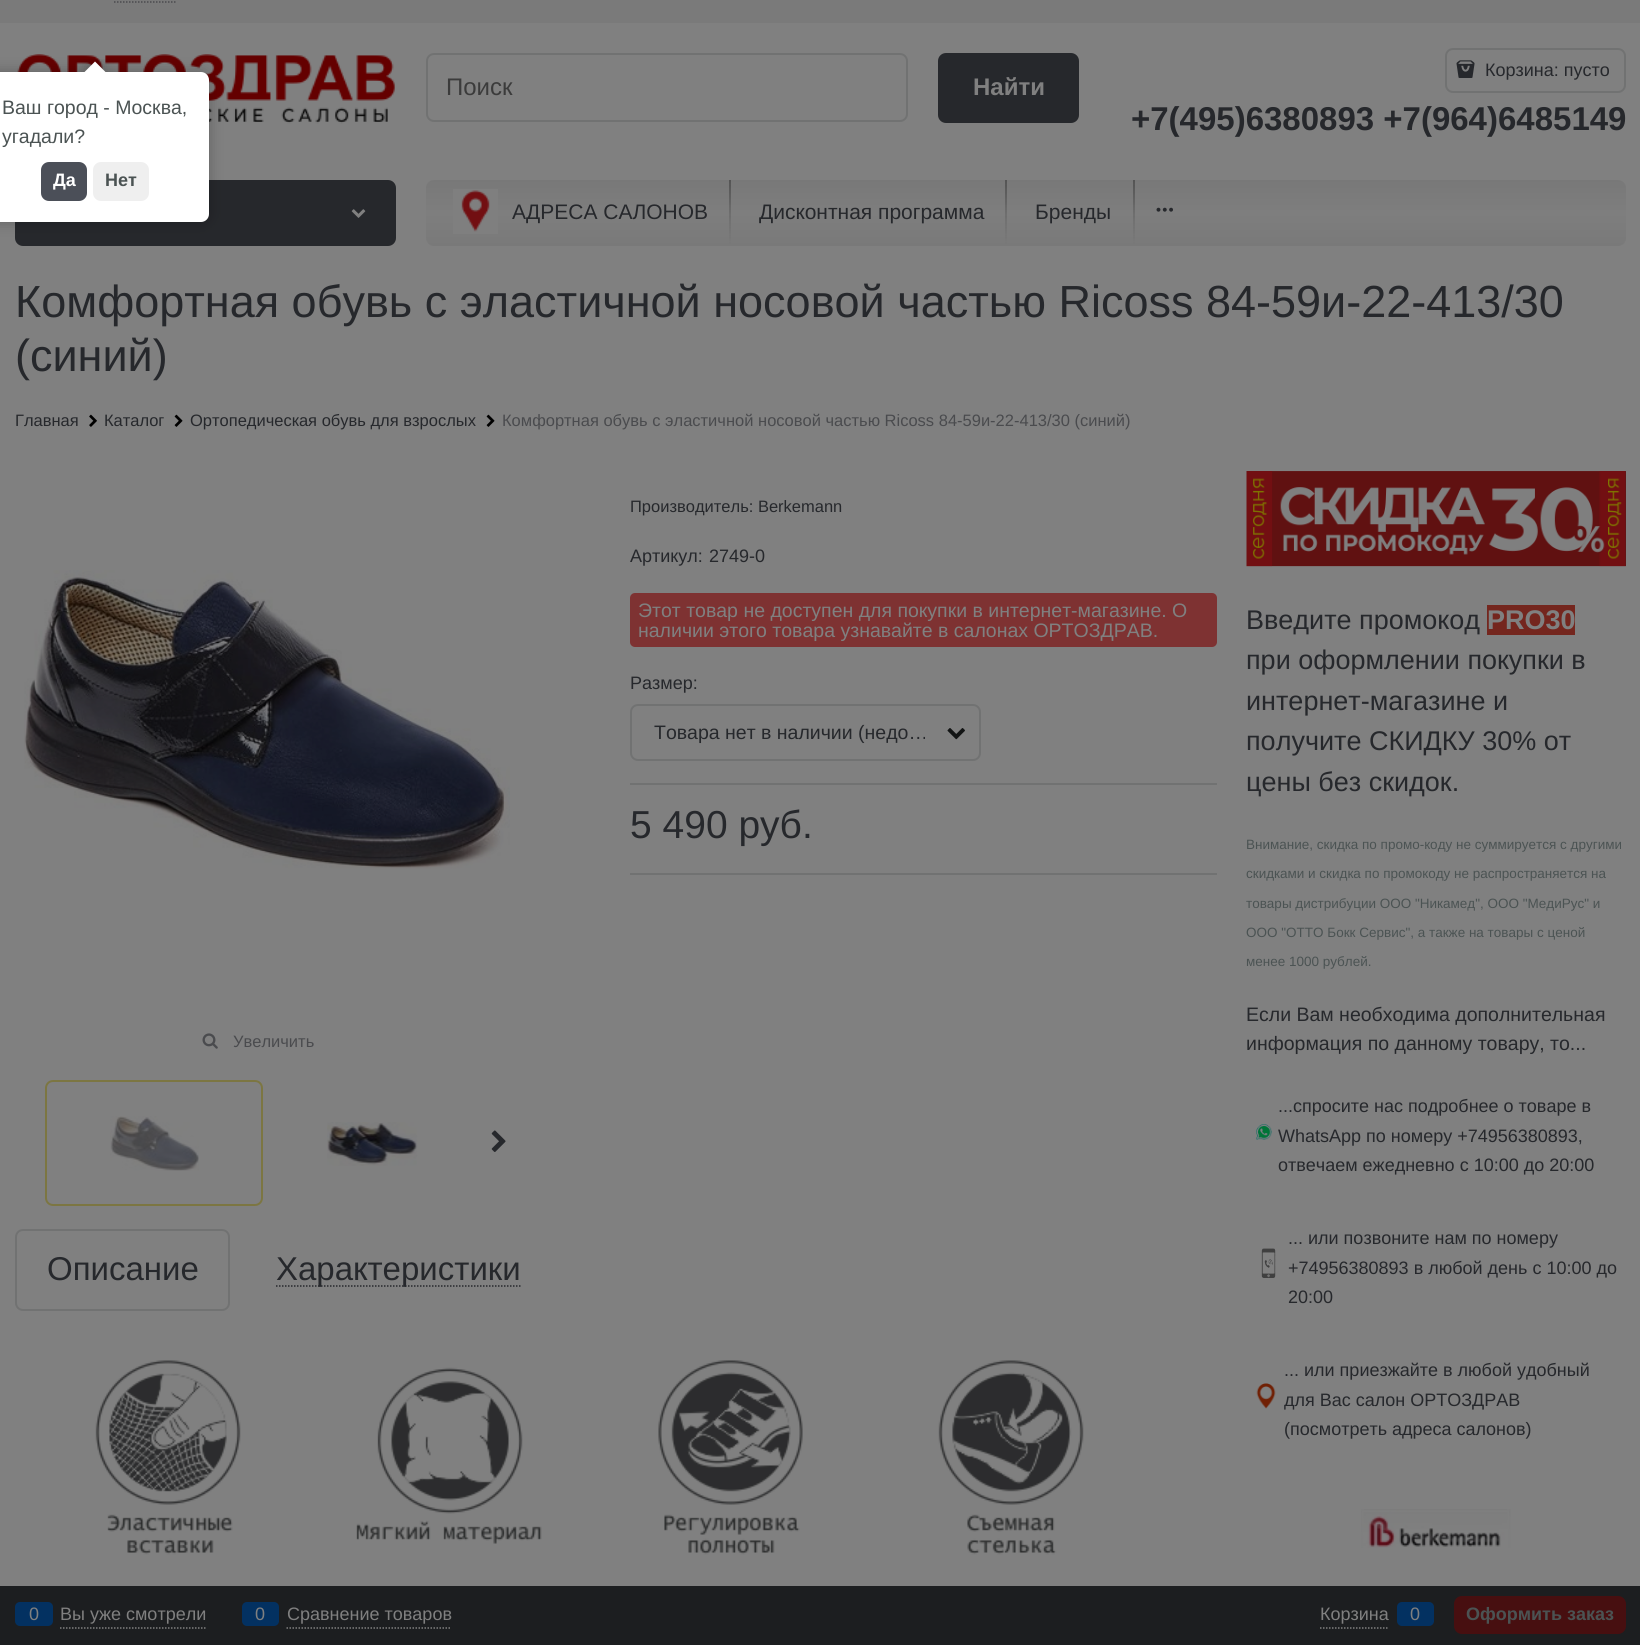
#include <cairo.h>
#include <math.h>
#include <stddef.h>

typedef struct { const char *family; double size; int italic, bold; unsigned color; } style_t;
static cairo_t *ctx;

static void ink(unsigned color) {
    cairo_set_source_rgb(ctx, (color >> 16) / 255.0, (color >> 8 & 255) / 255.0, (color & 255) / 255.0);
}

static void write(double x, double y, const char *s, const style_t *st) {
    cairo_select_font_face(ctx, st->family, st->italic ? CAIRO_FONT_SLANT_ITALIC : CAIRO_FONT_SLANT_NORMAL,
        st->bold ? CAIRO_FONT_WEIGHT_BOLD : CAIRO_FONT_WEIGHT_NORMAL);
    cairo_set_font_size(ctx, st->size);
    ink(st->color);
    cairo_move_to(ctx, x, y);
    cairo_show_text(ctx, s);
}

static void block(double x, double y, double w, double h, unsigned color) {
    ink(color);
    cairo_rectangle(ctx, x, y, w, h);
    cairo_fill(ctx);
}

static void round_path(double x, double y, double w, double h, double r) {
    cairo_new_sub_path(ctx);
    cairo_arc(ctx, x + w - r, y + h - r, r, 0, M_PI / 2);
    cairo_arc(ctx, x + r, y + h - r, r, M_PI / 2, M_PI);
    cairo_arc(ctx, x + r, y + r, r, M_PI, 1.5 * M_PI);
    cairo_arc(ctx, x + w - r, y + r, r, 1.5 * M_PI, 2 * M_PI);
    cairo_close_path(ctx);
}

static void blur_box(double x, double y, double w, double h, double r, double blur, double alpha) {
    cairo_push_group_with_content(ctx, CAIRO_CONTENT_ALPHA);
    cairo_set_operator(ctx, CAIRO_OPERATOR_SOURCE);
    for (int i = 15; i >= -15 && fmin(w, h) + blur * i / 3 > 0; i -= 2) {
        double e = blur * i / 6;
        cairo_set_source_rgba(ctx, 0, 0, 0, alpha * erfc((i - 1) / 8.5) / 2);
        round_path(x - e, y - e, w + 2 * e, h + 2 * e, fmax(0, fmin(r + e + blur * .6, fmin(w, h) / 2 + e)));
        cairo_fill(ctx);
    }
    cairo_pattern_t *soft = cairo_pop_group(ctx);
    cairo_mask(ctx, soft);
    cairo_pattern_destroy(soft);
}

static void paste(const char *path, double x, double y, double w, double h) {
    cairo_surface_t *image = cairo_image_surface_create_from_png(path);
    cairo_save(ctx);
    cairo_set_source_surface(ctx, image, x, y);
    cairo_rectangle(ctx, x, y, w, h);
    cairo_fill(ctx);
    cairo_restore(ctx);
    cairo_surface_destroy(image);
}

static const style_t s1 = {"Liberation Sans", 24, 0, 0, 0x3b3b3b};
static const style_t s2 = {"Liberation Sans", 24, 0, 1, 0x808080};
static const style_t s3 = {"Liberation Sans", 18, 0, 0, 0x26282c};
static const style_t s4 = {"Liberation Sans", 33, 0, 1, 0x26282c};
static const style_t s5 = {"Liberation Sans", 21, 0, 0, 0x26282c};
static const style_t s6 = {"Liberation Sans", 45, 0, 0, 0x26282c};
static const style_t s7 = {"Liberation Sans", 16.5, 0, 0, 0x26282c};
static const style_t s8 = {"Liberation Sans", 16.5, 0, 0, 0x4a4b4e};
static const style_t s9 = {"Liberation Sans", 19.5, 0, 0, 0x808080};
static const style_t s10 = {"Liberation Sans", 19.5, 0, 0, 0x26282c};
static const style_t s11 = {"Liberation Sans", 39, 0, 0, 0x26282c};
static const style_t s12 = {"Liberation Sans", 33, 0, 0, 0x26282c};
static const style_t s13 = {"Liberation Sans", 27, 0, 0, 0x26282c};
static const style_t s14 = {"Liberation Sans", 27, 0, 1, 0x808080};
static const style_t s15 = {"Liberation Sans", 13.5, 0, 0, 0x4b5353};
static const style_t s16 = {"Liberation Sans", 18, 0, 0, 0x808080};
static const style_t s17 = {"Liberation Sans", 18, 0, 1, 0x4b5353};
static const style_t s18 = {"Liberation Sans", 19.5, 0, 0, 0x4b5353};
static const style_t s19 = {"Liberation Sans", 18, 0, 1, 0xffffff};

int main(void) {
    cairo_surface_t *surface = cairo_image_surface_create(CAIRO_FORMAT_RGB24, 1640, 1645);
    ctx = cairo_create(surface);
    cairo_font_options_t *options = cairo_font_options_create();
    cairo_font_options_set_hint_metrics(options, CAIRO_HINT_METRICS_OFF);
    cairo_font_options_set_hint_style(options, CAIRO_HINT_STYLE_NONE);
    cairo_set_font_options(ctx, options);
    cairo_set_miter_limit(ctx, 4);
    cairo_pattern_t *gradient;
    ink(0x808080);
    cairo_paint(ctx);
    block(0, 0, 1640, 23, 0x7a7a7a);
    cairo_new_path(ctx);
    cairo_move_to(ctx, 114, 2);
    cairo_line_to(ctx, 175.5, 2);
    ink(0x4a4b4e);
    cairo_set_line_width(ctx, 1.5);
    cairo_set_dash(ctx, (double[]){1.5, 1.5}, 2, 0);
    cairo_stroke(ctx);
    paste("pic1.png", 17, 54, 378, 71);
    round_path(427, 54, 480, 67, 7);
    ink(0x717272);
    cairo_set_line_width(ctx, 2);
    cairo_set_dash(ctx, NULL, 0, 0);
    cairo_stroke(ctx);
    write(446, 95, "Поиск", &s1);
    ink(0x26282c);
    round_path(938, 53, 141, 70, 8);
    cairo_fill(ctx);
    write(973, 95, "Найти", &s2);
    round_path(1446, 49, 179, 43, 7);
    ink(0x717272);
    cairo_stroke(ctx);
    paste("pic2.png", 1456, 60, 19, 18);
    write(1485, 76, "Корзина: пусто", &s3);
    write(1131, 130, "+7(495)6380893 +7(964)6485149", &s4);
    round_path(15, 180, 381, 66, 8);
    cairo_fill(ctx);
    paste("pic3.png", 351, 209, 15, 9);
    gradient = cairo_pattern_create_linear(1026, 180, 1026, 246);
    cairo_pattern_add_color_stop_rgba(gradient, 0, 0.471, 0.471, 0.471, 1);
    cairo_pattern_add_color_stop_rgba(gradient, 0.5, 0.494, 0.494, 0.494, 1);
    cairo_pattern_add_color_stop_rgba(gradient, 1, 0.475, 0.475, 0.475, 1);
    cairo_set_source(ctx, gradient);
    cairo_pattern_destroy(gradient);
    round_path(426, 180, 1200, 66, 8);
    cairo_fill(ctx);
    paste("pic4.png", 453, 189, 45, 45);
    write(512, 219, "АДРЕСА САЛОНОВ", &s5);
    gradient = cairo_pattern_create_linear(730, 180, 730, 246);
    cairo_pattern_add_color_stop_rgba(gradient, 0, 0.114, 0.114, 0.114, 0.39);
    cairo_pattern_add_color_stop_rgba(gradient, 0.17, 0.114, 0.114, 0.114, 0.33);
    cairo_pattern_add_color_stop_rgba(gradient, 0.61, 0.114, 0.114, 0.114, 0.12);
    cairo_pattern_add_color_stop_rgba(gradient, 0.96, 0.114, 0.114, 0.114, 0.01);
    cairo_pattern_add_color_stop_rgba(gradient, 0.98, 0.502, 0.502, 0.502, 0.01);
    cairo_pattern_add_color_stop_rgba(gradient, 1, 0.502, 0.502, 0.502, 0);
    cairo_set_source(ctx, gradient);
    cairo_pattern_destroy(gradient);
    cairo_rectangle(ctx, 729, 180, 2, 66);
    cairo_fill(ctx);
    write(759, 219, "Дисконтная программа", &s5);
    gradient = cairo_pattern_create_linear(1006, 180, 1006, 246);
    cairo_pattern_add_color_stop_rgba(gradient, 0, 0.114, 0.114, 0.114, 0.39);
    cairo_pattern_add_color_stop_rgba(gradient, 0.17, 0.114, 0.114, 0.114, 0.33);
    cairo_pattern_add_color_stop_rgba(gradient, 0.61, 0.114, 0.114, 0.114, 0.12);
    cairo_pattern_add_color_stop_rgba(gradient, 0.96, 0.114, 0.114, 0.114, 0.01);
    cairo_pattern_add_color_stop_rgba(gradient, 0.98, 0.502, 0.502, 0.502, 0.01);
    cairo_pattern_add_color_stop_rgba(gradient, 1, 0.502, 0.502, 0.502, 0);
    cairo_set_source(ctx, gradient);
    cairo_pattern_destroy(gradient);
    cairo_rectangle(ctx, 1005, 180, 2, 66);
    cairo_fill(ctx);
    write(1035, 219, "Бренды", &s5);
    gradient = cairo_pattern_create_linear(1133, 180, 1133, 246);
    cairo_pattern_add_color_stop_rgba(gradient, 0, 0.114, 0.114, 0.114, 0.39);
    cairo_pattern_add_color_stop_rgba(gradient, 0.17, 0.114, 0.114, 0.114, 0.33);
    cairo_pattern_add_color_stop_rgba(gradient, 0.61, 0.114, 0.114, 0.114, 0.12);
    cairo_pattern_add_color_stop_rgba(gradient, 0.96, 0.114, 0.114, 0.114, 0.01);
    cairo_pattern_add_color_stop_rgba(gradient, 0.98, 0.502, 0.502, 0.502, 0.01);
    cairo_pattern_add_color_stop_rgba(gradient, 1, 0.502, 0.502, 0.502, 0);
    cairo_set_source(ctx, gradient);
    cairo_pattern_destroy(gradient);
    cairo_rectangle(ctx, 1133, 180, 2, 66);
    cairo_fill(ctx);
    paste("pic5.png", 1156, 207, 17, 5);
    write(15, 317, "Комфортная обувь с эластичной носовой частью Ricoss 84-59и-22-413/30", &s6);
    write(15, 371, "(синий)", &s6);
    write(15, 426, "Главная", &s7);
    paste("pic6.png", 89, 414, 8, 13);
    write(104, 426, "Каталог", &s7);
    paste("pic7.png", 174, 414, 9, 13);
    write(190, 426, "Ортопедическая обувь для взрослых", &s7);
    paste("pic7.png", 486, 414, 9, 13);
    write(502, 426, "Комфортная обувь с эластичной носовой частью Ricoss 84-59и-22-413/30 (синий)", &s8);
    write(630, 512, "Производитель: Berkemann", &s7);
    write(630, 562, "Артикул:", &s3);
    write(709, 562, "2749-0", &s3);
    ink(0x7e3232);
    round_path(630, 593, 587, 54, 5);
    cairo_fill(ctx);
    write(638, 617, "Этот товар не доступен для покупки в интернет-магазине. О", &s9);
    write(638, 637, "наличии этого товара узнавайте в салонах ОРТОЗДРАВ.", &s9);
    write(630, 689, "Размер:", &s3);
    round_path(631, 705, 349, 55, 7);
    ink(0x717272);
    cairo_stroke(ctx);
    write(654, 739, "Товара нет в наличии (недо…", &s10);
    paste("pic8.png", 947, 728, 18, 12);
    block(630, 783, 587, 2, 0x717272);
    block(630, 873, 587, 2, 0x717272);
    write(630, 838, "5 490 руб.", &s11);
    paste("pic9.png", 24, 570, 486, 299);
    paste("pic10.png", 202, 1033, 16, 16);
    write(233, 1047, "Увеличить", &s8);
    round_path(46, 1081, 216, 124, 7);
    ink(0x7c7642);
    cairo_stroke(ctx);
    paste("pic11.png", 110, 1116, 89, 55);
    paste("pic12.png", 327, 1122, 91, 44);
    paste("pic13.png", 491, 1130, 15, 22);
    round_path(16, 1230, 213, 80, 7);
    ink(0x717272);
    cairo_stroke(ctx);
    write(47, 1280, "Описание", &s12);
    cairo_new_path(ctx);
    cairo_move_to(ctx, 276, 1286);
    cairo_line_to(ctx, 520.5, 1286);
    cairo_set_line_width(ctx, 1.5);
    cairo_set_dash(ctx, (double[]){1.5, 1.5}, 2, 0);
    cairo_stroke(ctx);
    write(276, 1280, "Характеристики", &s12);
    paste("pic14.png", 95, 1360, 146, 195);
    paste("pic15.png", 356, 1367, 186, 177);
    paste("pic16.png", 658, 1360, 145, 195);
    paste("pic17.png", 938, 1360, 146, 195);
    paste("pic18.png", 1246, 471, 380, 96);
    write(1246, 629, "Введите промокод", &s13);
    block(1487, 605, 88, 30, 0x74261e);
    write(1487, 629, "PRO30", &s14);
    write(1246, 669, "при оформлении покупки в", &s13);
    write(1246, 710, "интернет-магазине и", &s13);
    write(1246, 750, "получите СКИДКУ 30% от", &s13);
    write(1246, 791, "цены без скидок.", &s13);
    write(1246, 849, "Внимание, скидка по промо-коду не суммируется с другими", &s15);
    write(1246, 878, "скидками и скидка по промокоду не распространяется на", &s15);
    write(1246, 908, "товары дистрибуции ООО \"Никамед\", ООО \"МедиРус\" и", &s15);
    write(1246, 937, "ООО \"ОТТО Бокк Сервис\", а также на товары с ценой", &s15);
    write(1246, 966, "менее 1000 рублей.", &s15);
    write(1246, 1021, "Если Вам необходима дополнительная", &s10);
    write(1246, 1050, "информация по данному товару, то...", &s10);
    paste("pic19.png", 1256, 1124, 16, 16);
    write(1278, 1112, "...спросите нас подробнее о товаре в", &s3);
    write(1278, 1142, "WhatsApp по номеру +74956380893,", &s3);
    write(1278, 1171, "отвечаем ежедневно с 10:00 до 20:00", &s3);
    paste("pic20.png", 1261, 1248, 15, 30);
    write(1288, 1244, "... или позвоните нам по номеру", &s3);
    write(1288, 1274, "+74956380893 в любой день с 10:00 до", &s3);
    write(1288, 1303, "20:00", &s3);
    paste("pic21.png", 1256, 1383, 20, 26);
    write(1284, 1376, "... или приезжайте в любой удобный", &s3);
    write(1284, 1406, "для Вас салон ОРТОЗДРАВ", &s3);
    write(1284, 1435, "(посмотреть адреса салонов)", &s3);
    paste("pic22.png", 1361, 1509, 150, 39);
    block(0, 1586, 1640, 59, 0x1c1e20);
    cairo_new_path(ctx);
    cairo_move_to(ctx, 60, 1628);
    cairo_line_to(ctx, 205.5, 1628);
    ink(0x808080);
    cairo_stroke(ctx);
    ink(0x033161);
    round_path(15, 1602, 38, 24, 5);
    cairo_fill(ctx);
    write(29, 1620, "0", &s16);
    write(60, 1620, "Вы уже смотрели", &s16);
    cairo_new_path(ctx);
    cairo_move_to(ctx, 286.5, 1628);
    cairo_line_to(ctx, 451.5, 1628);
    cairo_stroke(ctx);
    ink(0x033161);
    round_path(242, 1602, 37, 24, 5);
    cairo_fill(ctx);
    write(255, 1620, "0", &s16);
    write(287, 1620, "Сравнение товаров", &s16);
    cairo_new_path(ctx);
    cairo_move_to(ctx, 1320, 1628);
    cairo_line_to(ctx, 1389, 1628);
    cairo_stroke(ctx);
    write(1320, 1620, "Корзина", &s16);
    ink(0x033161);
    round_path(1397, 1602, 37, 24, 5);
    cairo_fill(ctx);
    write(1410, 1620, "0", &s16);
    ink(0x470f10);
    round_path(1454, 1596, 172, 38, 8);
    cairo_fill(ctx);
    write(1466, 1620, "Оформить заказ", &s17);
    ink(0x000000);
    blur_box(-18, 72, 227, 150, 8, 7, 0.25);
    ink(0xffffff);
    round_path(-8, 72, 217, 150, 8);
    cairo_fill(ctx);
    cairo_save(ctx);
    cairo_rectangle(ctx, 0, 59, 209, 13);
    cairo_clip(ctx);
    ink(0x000000);
    blur_box(87, 65, 15, 15, 0, 7, 0.25);
    cairo_restore(ctx);
    cairo_save(ctx);
    cairo_rectangle(ctx, 0, 59, 209, 13);
    cairo_clip(ctx);
    cairo_new_path(ctx);
    cairo_move_to(ctx, 95, 61.5);
    cairo_line_to(ctx, 105.5, 72);
    cairo_line_to(ctx, 95, 82.5);
    cairo_line_to(ctx, 84.5, 72);
    cairo_close_path(ctx);
    cairo_fill(ctx);
    cairo_restore(ctx);
    write(2, 114, "Ваш город - Москва,", &s18);
    write(2, 143, "угадали?", &s18);
    ink(0x4b4f58);
    round_path(41, 162, 46, 39, 8);
    cairo_fill(ctx);
    write(53, 186, "Да", &s19);
    ink(0xefefef);
    round_path(93, 162, 56, 39, 8);
    cairo_fill(ctx);
    write(105, 186, "Нет", &s17);
    cairo_surface_write_to_png(surface, "screenshot.png");
    cairo_font_options_destroy(options);
    cairo_destroy(ctx);
    cairo_surface_destroy(surface);
    return 0;
}
